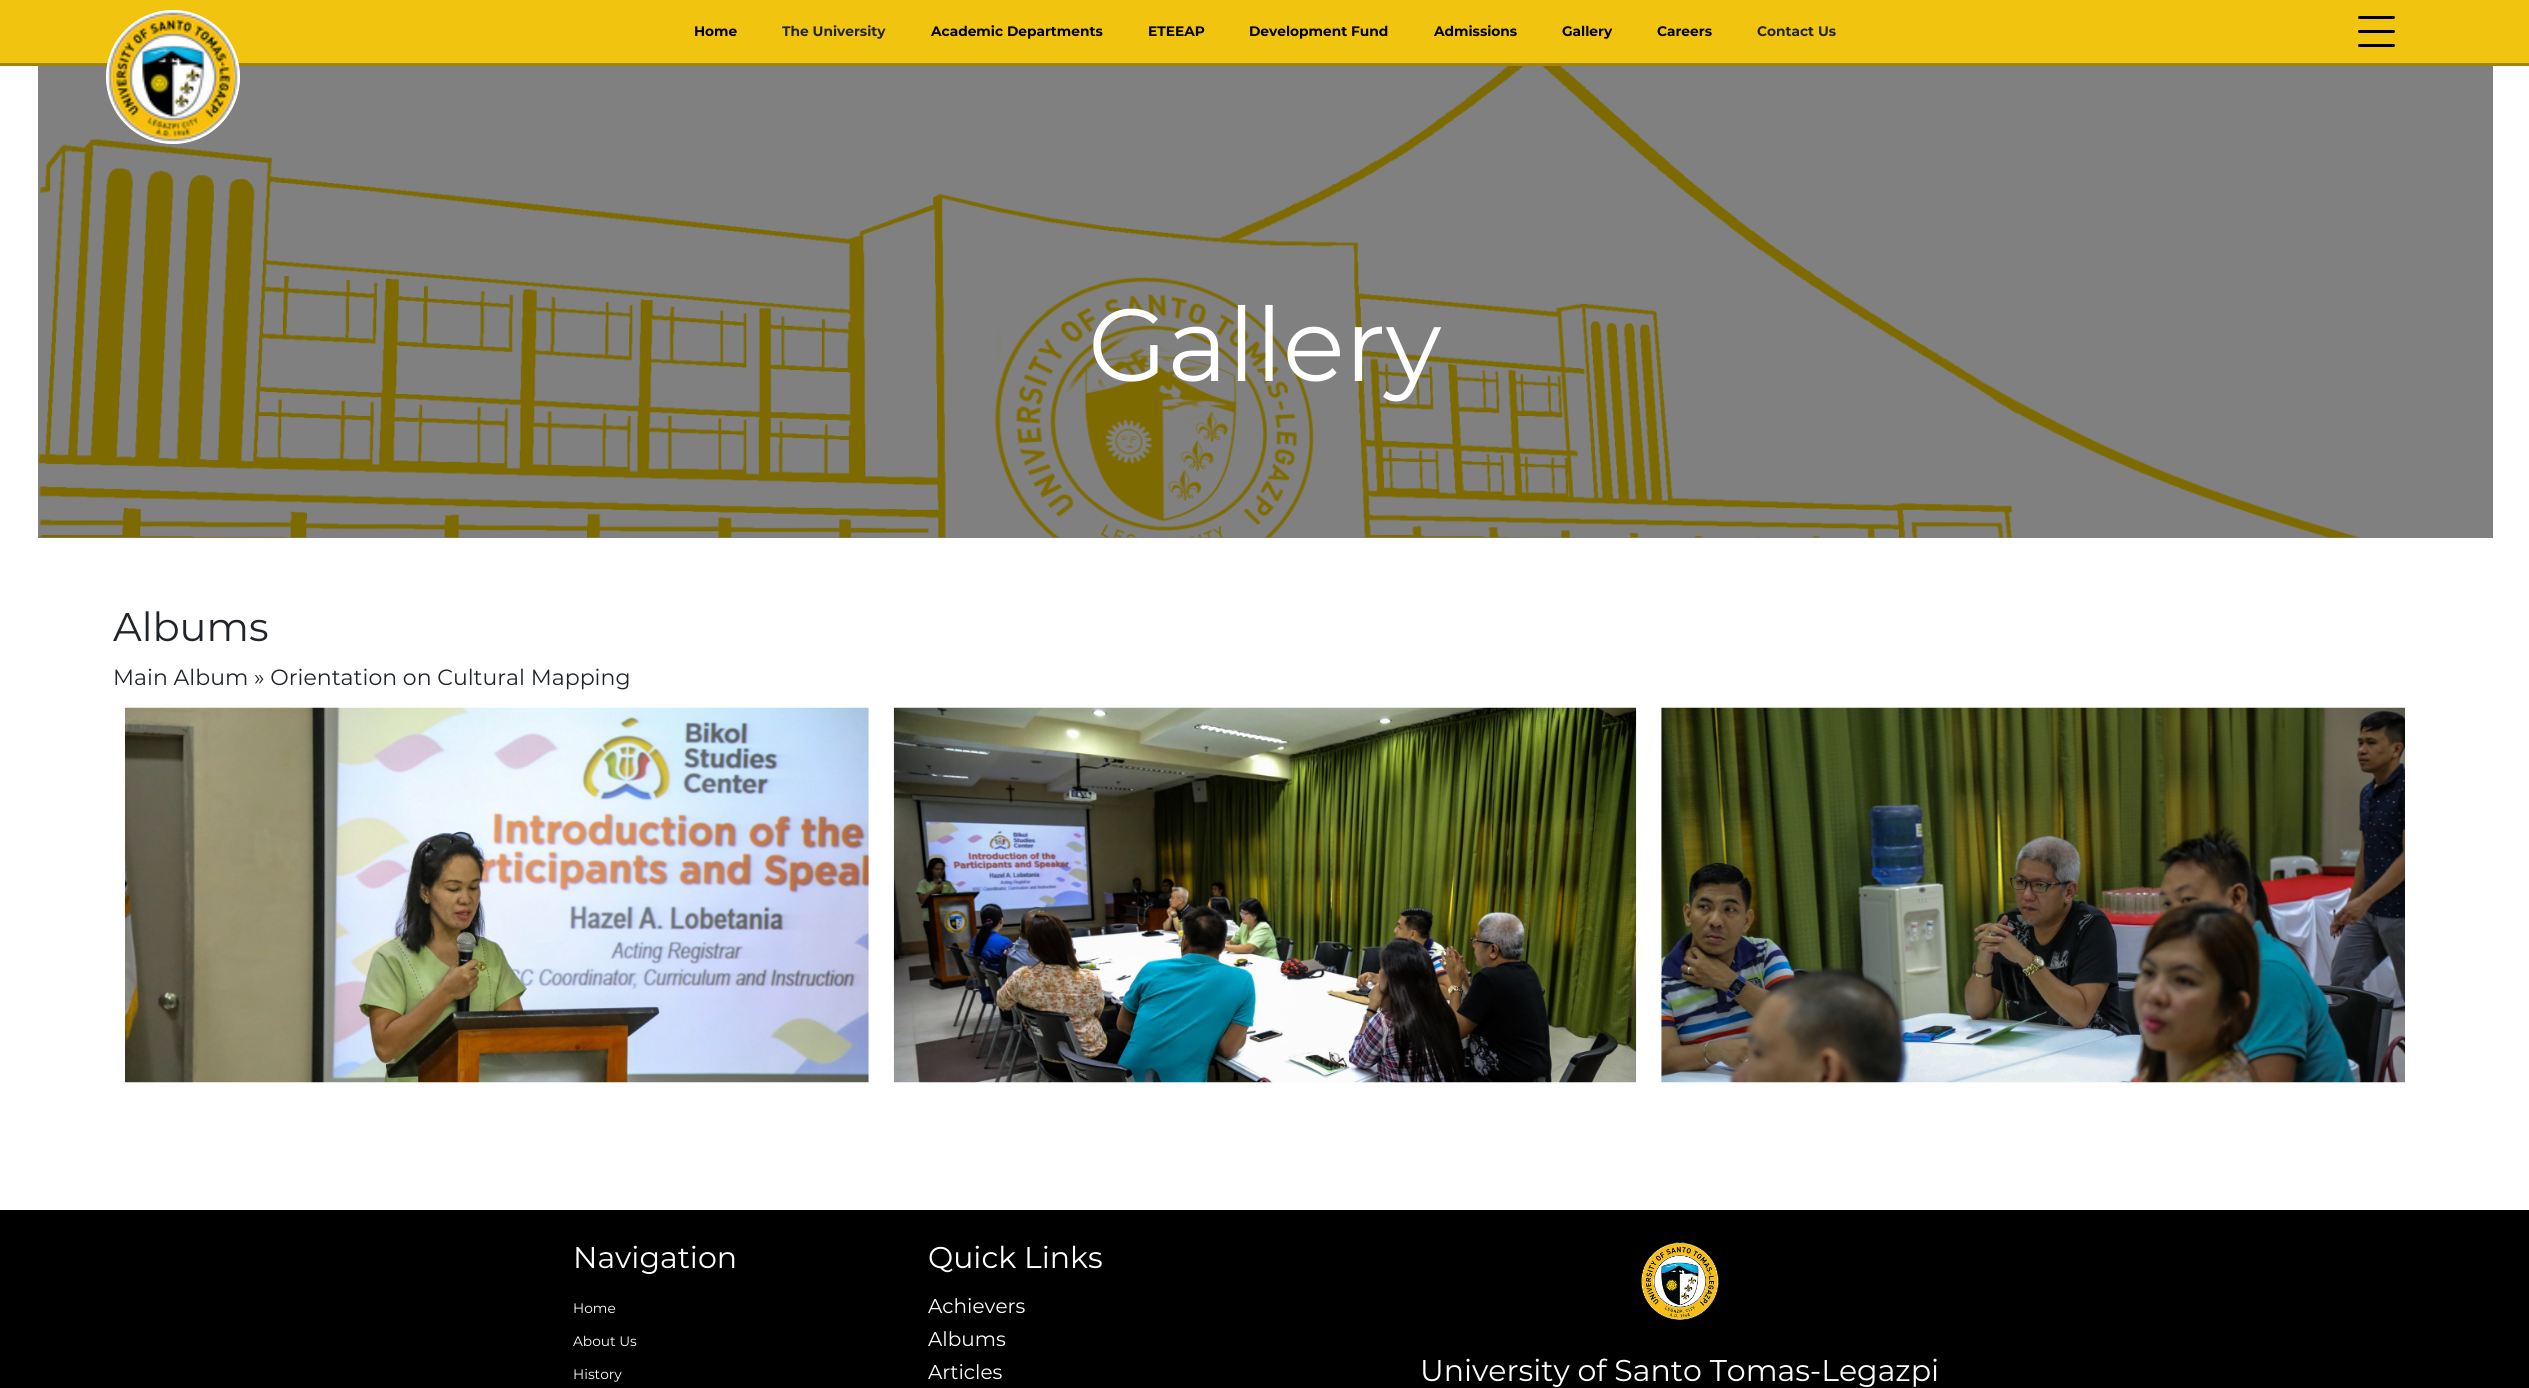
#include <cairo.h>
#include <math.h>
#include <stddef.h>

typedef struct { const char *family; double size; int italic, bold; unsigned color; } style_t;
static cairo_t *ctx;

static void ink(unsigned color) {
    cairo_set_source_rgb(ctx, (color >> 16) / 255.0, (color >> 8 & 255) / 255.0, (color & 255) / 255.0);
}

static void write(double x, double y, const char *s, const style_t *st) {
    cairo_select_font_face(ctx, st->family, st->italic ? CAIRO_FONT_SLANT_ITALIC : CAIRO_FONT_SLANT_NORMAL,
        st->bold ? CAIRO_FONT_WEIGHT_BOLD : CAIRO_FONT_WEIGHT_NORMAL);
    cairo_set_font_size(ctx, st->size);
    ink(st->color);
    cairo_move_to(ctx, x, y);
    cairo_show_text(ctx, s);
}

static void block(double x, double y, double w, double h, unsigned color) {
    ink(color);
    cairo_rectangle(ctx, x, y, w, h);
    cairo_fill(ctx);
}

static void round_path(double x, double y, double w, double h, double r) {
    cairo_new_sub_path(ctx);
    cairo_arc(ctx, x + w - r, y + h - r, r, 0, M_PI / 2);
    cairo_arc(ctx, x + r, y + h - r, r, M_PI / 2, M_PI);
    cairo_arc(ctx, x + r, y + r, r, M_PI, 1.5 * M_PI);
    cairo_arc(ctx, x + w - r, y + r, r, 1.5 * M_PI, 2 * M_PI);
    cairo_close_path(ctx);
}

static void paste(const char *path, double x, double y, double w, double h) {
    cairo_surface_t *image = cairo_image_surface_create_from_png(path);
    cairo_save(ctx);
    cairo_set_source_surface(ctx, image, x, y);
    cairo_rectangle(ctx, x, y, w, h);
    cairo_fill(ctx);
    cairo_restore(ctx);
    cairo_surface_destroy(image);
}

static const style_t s1 = {"Montserrat", 13.75, 0, 1, 0x000000};
static const style_t s2 = {"Montserrat", 13.75, 0, 1, 0x212529};
static const style_t s3 = {"Montserrat", 102.5, 0, 0, 0xffffff};
static const style_t s4 = {"Montserrat", 40, 0, 0, 0x212529};
static const style_t s5 = {"Montserrat", 22, 0, 0, 0x212529};
static const style_t s6 = {"Montserrat", 30, 0, 0, 0xffffff};
static const style_t s7 = {"Montserrat", 13.75, 0, 0, 0xffffff};
static const style_t s8 = {"Montserrat", 20, 0, 0, 0xffffff};

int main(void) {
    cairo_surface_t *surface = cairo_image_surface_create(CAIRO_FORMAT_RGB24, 2529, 1388);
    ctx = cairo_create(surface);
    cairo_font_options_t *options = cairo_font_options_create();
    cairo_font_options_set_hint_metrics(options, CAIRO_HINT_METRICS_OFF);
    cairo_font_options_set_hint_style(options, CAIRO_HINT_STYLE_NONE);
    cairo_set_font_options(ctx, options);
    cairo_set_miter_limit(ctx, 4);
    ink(0xffffff);
    cairo_paint(ctx);
    block(38, 66, 2455, 472, 0x808080);
    block(0, 0, 2529, 63, 0xf1c40f);
    block(0, 63, 2529, 3, 0xa1830a);
    paste("pic2.png", 38, 66, 2323, 472);
    ink(0xffffff);
    cairo_arc(ctx, 173, 77, 66.5, 0, 2 * M_PI);
    cairo_fill_preserve(ctx);
    cairo_set_line_width(ctx, 1);
    cairo_stroke(ctx);
    paste("pic1.png", 108, 12, 130, 130);
    write(694, 36, "Home", &s1);
    write(782, 36, "The University", &s2);
    write(931, 36, "Academic Departments", &s1);
    write(1148, 36, "ETEEAP", &s1);
    write(1249, 36, "Development Fund", &s1);
    write(1434, 36, "Admissions", &s1);
    write(1562, 36, "Gallery", &s1);
    write(1657, 36, "Careers", &s1);
    write(1757, 36, "Contact Us", &s2);
    ink(0x000000);
    round_path(2358, 16, 37, 3, 1.5);
    cairo_fill(ctx);
    round_path(2358, 30, 37, 3, 1.5);
    cairo_fill(ctx);
    round_path(2358, 44, 37, 3, 1.5);
    cairo_fill(ctx);
    write(1088, 381, "Gallery", &s3);
    write(113, 641, "Albums", &s4);
    write(113, 685, "Main Album » Orientation on Cultural Mapping", &s5);
    paste("pic3.png", 125, 707, 744, 376);
    paste("pic4.png", 893, 707, 744, 376);
    paste("pic5.png", 1661, 707, 744, 376);
    block(0, 1210, 2529, 178, 0x000000);
    write(573, 1268, "Navigation", &s6);
    write(573, 1313, "Home", &s7);
    write(573, 1346, "About Us", &s7);
    write(573, 1379, "History", &s7);
    write(928, 1268, "Quick Links", &s6);
    write(928, 1313, "Achievers", &s8);
    write(928, 1346, "Albums", &s8);
    write(928, 1379, "Articles", &s8);
    paste("pic6.png", 1641, 1242, 78, 78);
    write(1420, 1381, "University of Santo Tomas-Legazpi", &s6);
    cairo_surface_write_to_png(surface, "screenshot.png");
    cairo_font_options_destroy(options);
    cairo_destroy(ctx);
    cairo_surface_destroy(surface);
    return 0;
}
